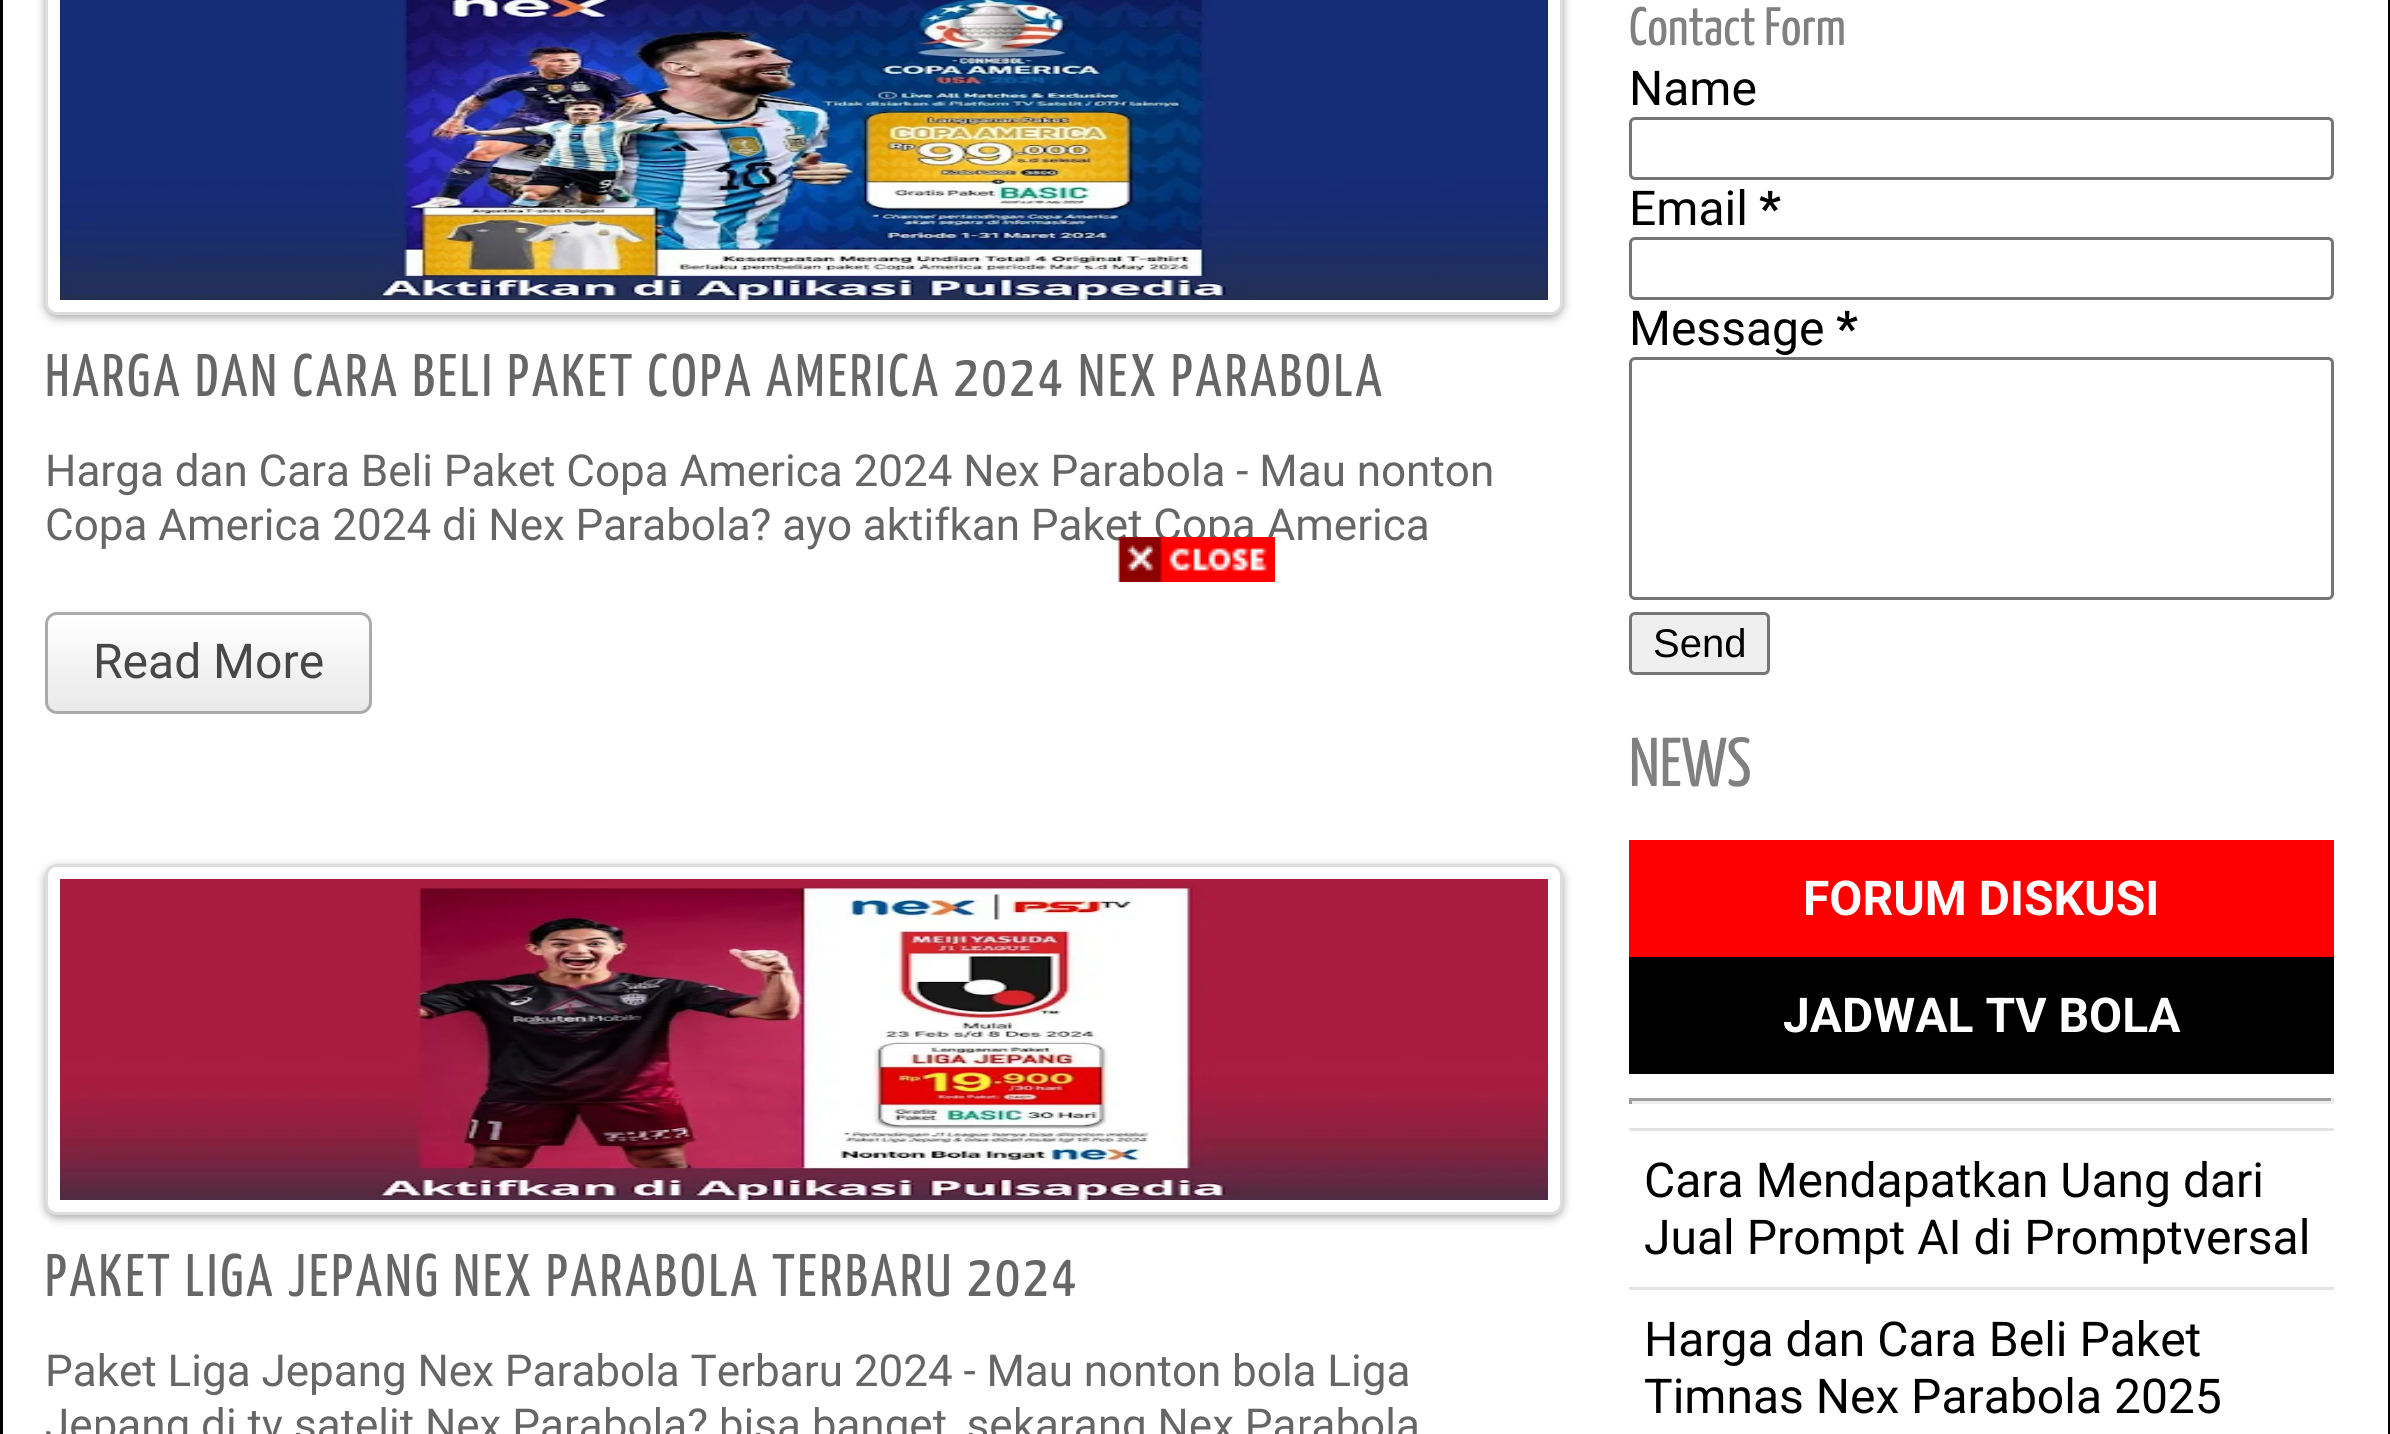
#include <cairo.h>
#include <math.h>
#include <stddef.h>

typedef struct { const char *family; double size; int italic, bold; unsigned color; } style_t;
static cairo_t *ctx;

static void ink(unsigned color) {
    cairo_set_source_rgb(ctx, (color >> 16) / 255.0, (color >> 8 & 255) / 255.0, (color & 255) / 255.0);
}

static void write(double x, double y, const char *s, const style_t *st) {
    cairo_select_font_face(ctx, st->family, st->italic ? CAIRO_FONT_SLANT_ITALIC : CAIRO_FONT_SLANT_NORMAL,
        st->bold ? CAIRO_FONT_WEIGHT_BOLD : CAIRO_FONT_WEIGHT_NORMAL);
    cairo_set_font_size(ctx, st->size);
    ink(st->color);
    cairo_move_to(ctx, x, y);
    cairo_show_text(ctx, s);
}

static void write_spaced(double x, double y, const char *s, double letter, double word) {
    cairo_move_to(ctx, x, y);
    while (*s) {
        char ch[5] = {0};
        int n = 0;
        do ch[n++] = *s++; while ((*s & 0xC0) == 0x80);
        cairo_show_text(ctx, ch);
        cairo_rel_move_to(ctx, letter + word * (*ch == ' '), 0);
    }
}

static void block(double x, double y, double w, double h, unsigned color) {
    ink(color);
    cairo_rectangle(ctx, x, y, w, h);
    cairo_fill(ctx);
}

static void round_path(double x, double y, double w, double h, double r) {
    cairo_new_sub_path(ctx);
    cairo_arc(ctx, x + w - r, y + h - r, r, 0, M_PI / 2);
    cairo_arc(ctx, x + r, y + h - r, r, M_PI / 2, M_PI);
    cairo_arc(ctx, x + r, y + r, r, M_PI, 1.5 * M_PI);
    cairo_arc(ctx, x + w - r, y + r, r, 1.5 * M_PI, 2 * M_PI);
    cairo_close_path(ctx);
}

static void blur_box(double x, double y, double w, double h, double r, double blur, double alpha) {
    cairo_push_group_with_content(ctx, CAIRO_CONTENT_ALPHA);
    cairo_set_operator(ctx, CAIRO_OPERATOR_SOURCE);
    for (int i = 15; i >= -15 && fmin(w, h) + blur * i / 3 > 0; i -= 2) {
        double e = blur * i / 6;
        cairo_set_source_rgba(ctx, 0, 0, 0, alpha * erfc((i - 1) / 8.5) / 2);
        round_path(x - e, y - e, w + 2 * e, h + 2 * e, fmax(0, fmin(r + e + blur * .6, fmin(w, h) / 2 + e)));
        cairo_fill(ctx);
    }
    cairo_pattern_t *soft = cairo_pop_group(ctx);
    cairo_mask(ctx, soft);
    cairo_pattern_destroy(soft);
}

static void paste(const char *path, double x, double y, double w, double h) {
    cairo_surface_t *image = cairo_image_surface_create_from_png(path);
    cairo_save(ctx);
    cairo_set_source_surface(ctx, image, x, y);
    cairo_rectangle(ctx, x, y, w, h);
    cairo_fill(ctx);
    cairo_restore(ctx);
    cairo_surface_destroy(image);
}

static const style_t s1 = {"Roboto", 48, 0, 0, 0x474747};
static const style_t s2 = {"Yanone Kaffeesatz ExtraLight", 54, 0, 0, 0x808080};
static const style_t s3 = {"Roboto", 48, 0, 0, 0x000000};
static const style_t s4 = {"Roboto", 48, 0, 1, 0x000000};
static const style_t s5 = {"Liberation Sans", 40, 0, 0, 0x000000};
static const style_t s6 = {"Yanone Kaffeesatz ExtraLight", 69, 0, 0, 0x808080};
static const style_t s7 = {"Roboto", 48, 0, 1, 0xffffff};

int main(void) {
    cairo_surface_t *surface = cairo_image_surface_create(CAIRO_FORMAT_RGB24, 2390, 1434);
    ctx = cairo_create(surface);
    cairo_font_options_t *options = cairo_font_options_create();
    cairo_font_options_set_hint_metrics(options, CAIRO_HINT_METRICS_OFF);
    cairo_font_options_set_hint_style(options, CAIRO_HINT_STYLE_NONE);
    cairo_set_font_options(ctx, options);
    cairo_set_miter_limit(ctx, 4);
    cairo_pattern_t *gradient;
    ink(0xffffff);
    cairo_paint(ctx);
    cairo_rectangle(ctx, 1.5, -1.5, 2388, 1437);
    ink(0x000000);
    cairo_set_line_width(ctx, 3);
    cairo_stroke(ctx);
    ink(0xaaaaaa);
    blur_box(45, -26, 1518, 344, 12, 4.5, 1);
    ink(0xffffff);
    round_path(46.5, -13.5, 1515, 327, 10.5);
    cairo_fill_preserve(ctx);
    ink(0xdddddd);
    cairo_stroke(ctx);
    paste("pic1.png", 60, 0, 1488, 300);
    cairo_select_font_face(ctx, "Yanone Kaffeesatz ExtraLight", CAIRO_FONT_SLANT_NORMAL, CAIRO_FONT_WEIGHT_NORMAL);
    cairo_set_font_size(ctx, 60);
    ink(0x666666);
    write_spaced(45, 396, "HARGA DAN CARA BELI PAKET COPA AMERICA 2024 NEX PARABOLA", 3, 0);
    cairo_select_font_face(ctx, "Roboto", CAIRO_FONT_SLANT_NORMAL, CAIRO_FONT_WEIGHT_NORMAL);
    cairo_set_font_size(ctx, 44);
    write_spaced(45, 486, "Harga dan Cara Beli Paket Copa America 2024 Nex Parabola - Mau nonton", 0, -0.1);
    write_spaced(45, 540, "Copa America 2024 di Nex Parabola? ayo aktifkan Paket Copa America", 0, -0.1);
    cairo_save(ctx);
    round_path(45, 612, 327, 102, 12);
    cairo_clip(ctx);
    gradient = cairo_pattern_create_linear(48, 711, 48, 615);
    cairo_pattern_add_color_stop_rgba(gradient, 0, 0.914, 0.914, 0.914, 1);
    cairo_pattern_add_color_stop_rgba(gradient, 1, 1, 1, 1, 1);
    cairo_set_source(ctx, gradient);
    cairo_pattern_destroy(gradient);
    cairo_rectangle(ctx, 45, 615, 327, 96);
    cairo_fill(ctx);
    cairo_restore(ctx);
    round_path(46.5, 613.5, 324, 99, 10.5);
    ink(0xababab);
    cairo_stroke(ctx);
    write(93, 678, "Read More", &s1);
    ink(0xaaaaaa);
    blur_box(45, 867, 1518, 351, 12, 4.5, 1);
    ink(0xffffff);
    round_path(46.5, 865.5, 1515, 348, 10.5);
    cairo_fill_preserve(ctx);
    ink(0xdddddd);
    cairo_stroke(ctx);
    paste("pic2.png", 60, 879, 1488, 321);
    cairo_select_font_face(ctx, "Yanone Kaffeesatz ExtraLight", CAIRO_FONT_SLANT_NORMAL, CAIRO_FONT_WEIGHT_NORMAL);
    cairo_set_font_size(ctx, 60);
    ink(0x666666);
    write_spaced(45, 1296, "PAKET LIGA JEPANG NEX PARABOLA TERBARU 2024", 3, 0);
    cairo_select_font_face(ctx, "Roboto", CAIRO_FONT_SLANT_NORMAL, CAIRO_FONT_WEIGHT_NORMAL);
    cairo_set_font_size(ctx, 44);
    write_spaced(45, 1386, "Paket Liga Jepang Nex Parabola Terbaru 2024 - Mau nonton bola Liga", 0, -0.1);
    write_spaced(45, 1440, "Jepang di tv satelit Nex Parabola? bisa banget, sekarang Nex Parabola", 0, -0.1);
    write(1629, 45, "Contact Form", &s2);
    write(1629, 105, "Name", &s3);
    round_path(1630.5, 118.5, 702, 60, 4.5);
    ink(0x767676);
    cairo_stroke(ctx);
    write(1629, 225, "Email", &s3);
    write(1759, 225, "*", &s4);
    round_path(1630.5, 238.5, 702, 60, 4.5);
    ink(0x767676);
    cairo_stroke(ctx);
    write(1629, 345, "Message", &s3);
    write(1836, 345, "*", &s4);
    round_path(1630.5, 358.5, 702, 240, 4.5);
    ink(0x767676);
    cairo_stroke(ctx);
    ink(0xefefef);
    round_path(1630.5, 613.5, 138, 60, 4.5);
    cairo_fill_preserve(ctx);
    ink(0x767676);
    cairo_stroke(ctx);
    write(1653, 657, "Send", &s5);
    write(1629, 786, "NEWS", &s6);
    block(1629, 840, 705, 117, 0xff0000);
    write(1803, 915, "FORUM DISKUSI", &s7);
    block(1629, 957, 705, 117, 0x000000);
    write(1783, 1032, "JADWAL TV BOLA", &s7);
    block(1629, 1098, 705, 3, 0x9f9f9f);
    block(2331, 1098, 3, 6, 0xeeeeee);
    block(1629, 1101, 705, 3, 0xeeeeee);
    block(1629, 1098, 3, 6, 0x9f9f9f);
    block(1629, 1128, 705, 3, 0xe3e3e3);
    block(1629, 1287, 705, 3, 0xe3e3e3);
    write(1644, 1197, "Cara Mendapatkan Uang dari", &s3);
    write(1644, 1254, "Jual Prompt AI di Promptversal", &s3);
    write(1644, 1356, "Harga dan Cara Beli Paket", &s3);
    write(1644, 1413, "Timnas Nex Parabola 2025", &s3);
    paste("pic3.png", 1118, 537, 157, 45);
    cairo_surface_write_to_png(surface, "screenshot.png");
    cairo_font_options_destroy(options);
    cairo_destroy(ctx);
    cairo_surface_destroy(surface);
    return 0;
}
